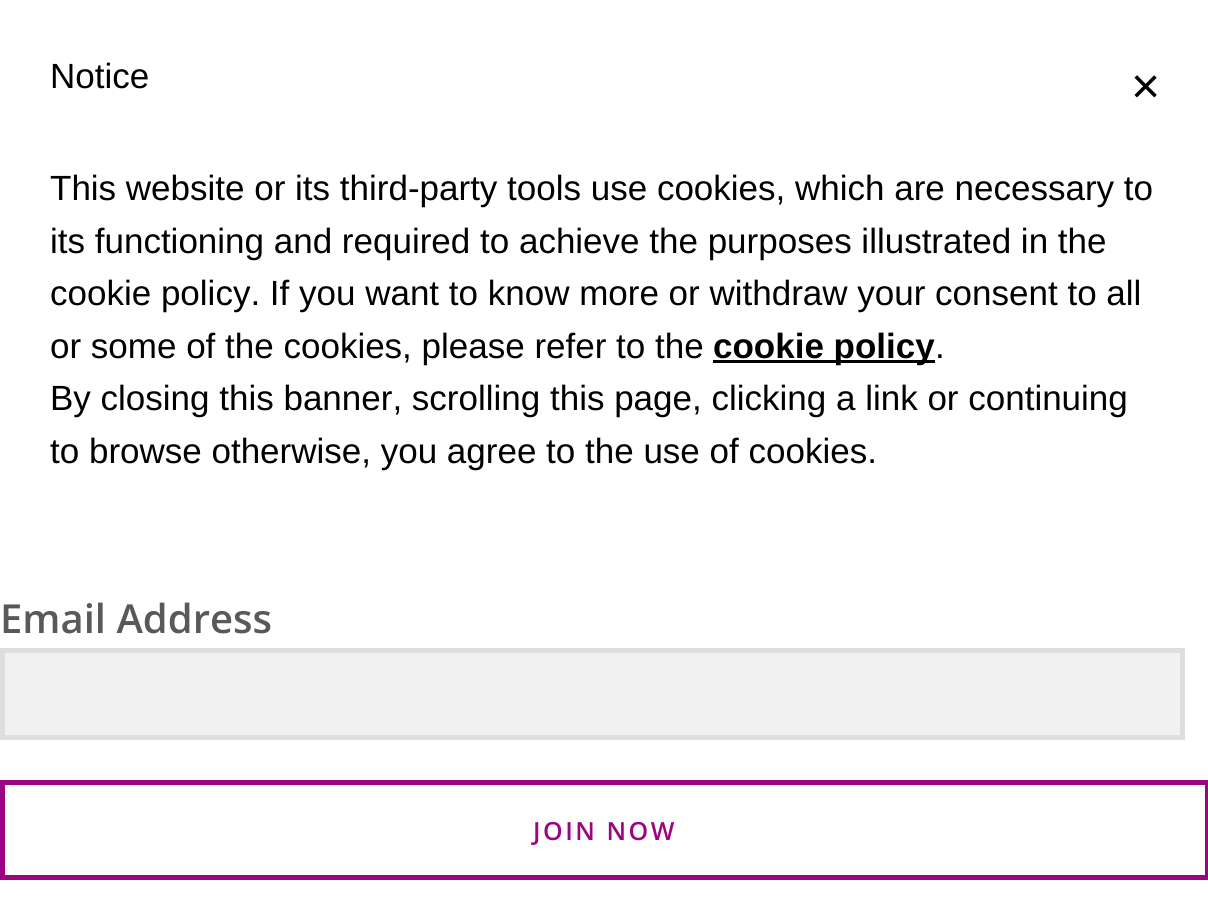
#include <cairo.h>
#include <math.h>
#include <stddef.h>

typedef struct { const char *family; double size; int italic, bold; unsigned color; } style_t;
static cairo_t *ctx;

static void ink(unsigned color) {
    cairo_set_source_rgb(ctx, (color >> 16) / 255.0, (color >> 8 & 255) / 255.0, (color & 255) / 255.0);
}

static void write(double x, double y, const char *s, const style_t *st) {
    cairo_select_font_face(ctx, st->family, st->italic ? CAIRO_FONT_SLANT_ITALIC : CAIRO_FONT_SLANT_NORMAL,
        st->bold ? CAIRO_FONT_WEIGHT_BOLD : CAIRO_FONT_WEIGHT_NORMAL);
    cairo_set_font_size(ctx, st->size);
    ink(st->color);
    cairo_move_to(ctx, x, y);
    cairo_show_text(ctx, s);
}

static void write_spaced(double x, double y, const char *s, double letter, double word) {
    cairo_move_to(ctx, x, y);
    while (*s) {
        char ch[5] = {0};
        int n = 0;
        do ch[n++] = *s++; while ((*s & 0xC0) == 0x80);
        cairo_show_text(ctx, ch);
        cairo_rel_move_to(ctx, letter + word * (*ch == ' '), 0);
    }
}

static void block(double x, double y, double w, double h, unsigned color) {
    ink(color);
    cairo_rectangle(ctx, x, y, w, h);
    cairo_fill(ctx);
}

static const style_t s1 = {"Liberation Sans", 35, 0, 0, 0x000000};
static const style_t s2 = {"Liberation Sans", 35, 0, 1, 0x000000};
static const style_t s3 = {"Liberation Sans", 50, 0, 0, 0x000000};
static const style_t s4 = {"Open Sans SemiBold", 40, 0, 0, 0x595959};

int main(void) {
    cairo_surface_t *surface = cairo_image_surface_create(CAIRO_FORMAT_RGB24, 1208, 914);
    ctx = cairo_create(surface);
    cairo_font_options_t *options = cairo_font_options_create();
    cairo_font_options_set_hint_metrics(options, CAIRO_HINT_METRICS_OFF);
    cairo_font_options_set_hint_style(options, CAIRO_HINT_STYLE_NONE);
    cairo_set_font_options(ctx, options);
    cairo_set_miter_limit(ctx, 4);
    ink(0xffffff);
    cairo_paint(ctx);
    write(50, 88, "Notice", &s1);
    write(50, 200, "This website or its third-party tools use cookies, which are necessary to", &s1);
    write(50, 253, "its functioning and required to achieve the purposes illustrated in the", &s1);
    write(50, 305, "cookie policy. If you want to know more or withdraw your consent to all", &s1);
    write(50, 358, "or some of the cookies, please refer to the", &s1);
    block(713, 360, 222, 3, 0x000000);
    write(713, 358, "cookie policy", &s2);
    write(935, 358, ".", &s1);
    write(50, 410, "By closing this banner, scrolling this page, clicking a link or continuing", &s1);
    write(50, 463, "to browse otherwise, you agree to the use of cookies.", &s1);
    write(1131, 103, "×", &s3);
    write(0, 633, "Email Address", &s4);
    ink(0xf1f1f1);
    cairo_rectangle(ctx, 2.5, 650.5, 1180, 87);
    cairo_fill_preserve(ctx);
    ink(0xdedede);
    cairo_set_line_width(ctx, 5);
    cairo_stroke(ctx);
    cairo_rectangle(ctx, 2.5, 782.5, 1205, 95);
    ink(0x9d0482);
    cairo_stroke(ctx);
    cairo_set_font_size(ctx, 25);
    write_spaced(533, 840, "JOIN NOW", 2.5, 0);
    cairo_surface_write_to_png(surface, "screenshot.png");
    cairo_font_options_destroy(options);
    cairo_destroy(ctx);
    cairo_surface_destroy(surface);
    return 0;
}
